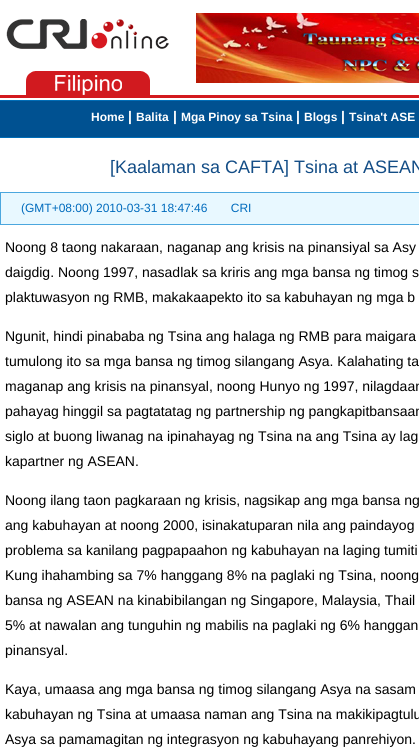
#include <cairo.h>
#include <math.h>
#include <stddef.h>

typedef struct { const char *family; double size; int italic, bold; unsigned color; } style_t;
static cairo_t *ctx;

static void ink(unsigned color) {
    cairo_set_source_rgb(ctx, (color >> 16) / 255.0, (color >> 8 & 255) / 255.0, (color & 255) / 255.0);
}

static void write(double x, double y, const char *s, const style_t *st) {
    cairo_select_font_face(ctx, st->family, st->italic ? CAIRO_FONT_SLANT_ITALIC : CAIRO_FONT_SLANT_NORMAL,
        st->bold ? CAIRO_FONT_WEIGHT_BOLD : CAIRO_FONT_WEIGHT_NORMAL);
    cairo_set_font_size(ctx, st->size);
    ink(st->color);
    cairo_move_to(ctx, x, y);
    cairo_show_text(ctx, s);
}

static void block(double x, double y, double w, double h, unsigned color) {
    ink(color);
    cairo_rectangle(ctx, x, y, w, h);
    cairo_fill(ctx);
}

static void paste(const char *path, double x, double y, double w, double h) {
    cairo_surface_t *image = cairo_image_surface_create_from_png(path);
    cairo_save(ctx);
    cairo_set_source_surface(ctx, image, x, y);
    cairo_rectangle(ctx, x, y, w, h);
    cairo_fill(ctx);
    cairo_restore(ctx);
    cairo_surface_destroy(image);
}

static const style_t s1 = {"Liberation Sans", 12, 0, 1, 0xffffff};
static const style_t s2 = {"Liberation Sans", 14, 0, 1, 0xffffff};
static const style_t s3 = {"Liberation Sans", 18, 0, 0, 0x134d86};
static const style_t s4 = {"Liberation Sans", 12, 0, 0, 0x006bbd};
static const style_t s5 = {"Liberation Sans", 14, 0, 0, 0x000000};

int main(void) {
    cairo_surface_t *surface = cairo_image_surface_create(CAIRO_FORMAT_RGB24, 419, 756);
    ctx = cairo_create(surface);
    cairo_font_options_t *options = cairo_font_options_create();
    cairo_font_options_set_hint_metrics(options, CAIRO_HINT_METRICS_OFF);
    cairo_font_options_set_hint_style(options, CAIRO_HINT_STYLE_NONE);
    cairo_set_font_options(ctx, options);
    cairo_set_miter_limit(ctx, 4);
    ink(0xffffff);
    cairo_paint(ctx);
    paste("pic1.png", 6, 19, 163, 30);
    paste("pic2.png", 196, 13, 223, 70);
    paste("pic3.png", 26, 71, 124, 24);
    block(0, 95, 419, 3, 0xd3191e);
    block(0, 100, 419, 1, 0x006db7);
    block(0, 101, 419, 36, 0x005191);
    write(91, 121, "Home", &s1);
    write(128, 121, "|", &s2);
    write(136, 121, "Balita", &s1);
    write(173, 121, "|", &s2);
    write(181, 121, "Mga Pinoy sa Tsina", &s1);
    write(296, 121, "|", &s2);
    write(304, 121, "Blogs", &s1);
    write(341, 121, "|", &s2);
    write(349, 121, "Tsina't ASE", &s1);
    block(0, 137, 419, 1, 0x006db7);
    write(110, 173, "[Kaalaman sa CAFTA] Tsina at ASEAN", &s3);
    ink(0xe8f8ff);
    cairo_rectangle(ctx, 0.5, 192.5, 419, 32);
    cairo_fill_preserve(ctx);
    ink(0x4ba7de);
    cairo_set_line_width(ctx, 1);
    cairo_stroke(ctx);
    write(21, 212, "(GMT+08:00) 2010-03-31 18:47:46       CRI", &s4);
    write(5, 252, "Noong 8 taong nakaraan, naganap ang krisis na pinansiyal sa Asy", &s5);
    write(5, 277, "daigdig. Noong 1997, nasadlak sa kriris ang mga bansa ng timog s", &s5);
    write(5, 302, "plaktuwasyon ng RMB, makakaapekto ito sa kabuhayan ng mga b", &s5);
    write(5, 341, "Ngunit, hindi pinababa ng Tsina ang halaga ng RMB para maigara", &s5);
    write(5, 366, "tumulong ito sa mga bansa ng timog silangang Asya. Kalahating ta", &s5);
    write(5, 391, "maganap ang krisis na pinansyal, noong Hunyo ng 1997, nilagdaan", &s5);
    write(5, 416, "pahayag hinggil sa pagtatatag ng partnership ng pangkapitbansaan", &s5);
    write(5, 441, "siglo at buong liwanag na ipinahayag ng Tsina na ang Tsina ay lag", &s5);
    write(5, 466, "kapartner ng ASEAN.", &s5);
    write(5, 505, "Noong ilang taon pagkaraan ng krisis, nagsikap ang mga bansa ng", &s5);
    write(5, 530, "ang kabuhayan at noong 2000, isinakatuparan nila ang paindayog", &s5);
    write(5, 555, "problema sa kanilang pagpapaahon ng kabuhayan na laging tumiti", &s5);
    write(5, 580, "Kung ihahambing sa 7% hanggang 8% na paglaki ng Tsina, noong", &s5);
    write(5, 605, "bansa ng ASEAN na kinabibilangan ng Singapore, Malaysia, Thail", &s5);
    write(5, 630, "5% at nawalan ang tunguhin ng mabilis na paglaki ng 6% hanggan", &s5);
    write(5, 655, "pinansyal.", &s5);
    write(5, 694, "Kaya, umaasa ang mga bansa ng timog silangang Asya na sasam", &s5);
    write(5, 719, "kabuhayan ng Tsina at umaasa naman ang Tsina na makikipagtulu", &s5);
    write(5, 744, "Asya sa pamamagitan ng integrasyon ng kabuhayang panrehiyon.", &s5);
    cairo_surface_write_to_png(surface, "screenshot.png");
    cairo_font_options_destroy(options);
    cairo_destroy(ctx);
    cairo_surface_destroy(surface);
    return 0;
}
